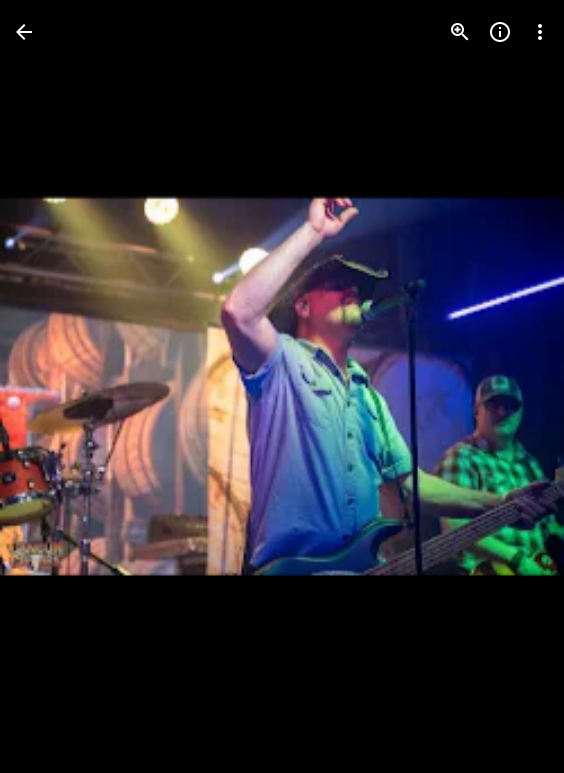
#include <cairo.h>
#include <math.h>
#include <stddef.h>

static cairo_t *ctx;

static void ink(unsigned color) {
    cairo_set_source_rgb(ctx, (color >> 16) / 255.0, (color >> 8 & 255) / 255.0, (color & 255) / 255.0);
}

static void paste(const char *path, double x, double y, double w, double h) {
    cairo_surface_t *image = cairo_image_surface_create_from_png(path);
    cairo_save(ctx);
    cairo_set_source_surface(ctx, image, x, y);
    cairo_rectangle(ctx, x, y, w, h);
    cairo_fill(ctx);
    cairo_restore(ctx);
    cairo_surface_destroy(image);
}

int main(void) {
    cairo_surface_t *surface = cairo_image_surface_create(CAIRO_FORMAT_RGB24, 564, 773);
    ctx = cairo_create(surface);
    cairo_font_options_t *options = cairo_font_options_create();
    cairo_font_options_set_hint_metrics(options, CAIRO_HINT_METRICS_OFF);
    cairo_font_options_set_hint_style(options, CAIRO_HINT_STYLE_NONE);
    cairo_set_font_options(ctx, options);
    cairo_set_miter_limit(ctx, 4);
    ink(0x000000);
    cairo_paint(ctx);
    paste("pic1.png", 16, 24, 16, 16);
    paste("pic2.png", 451, 23, 18, 18);
    paste("pic3.png", 490, 22, 20, 20);
    paste("pic4.png", 538, 24, 4, 16);
    paste("pic5.png", 0, 195, 564, 381);
    cairo_surface_write_to_png(surface, "screenshot.png");
    cairo_font_options_destroy(options);
    cairo_destroy(ctx);
    cairo_surface_destroy(surface);
    return 0;
}
